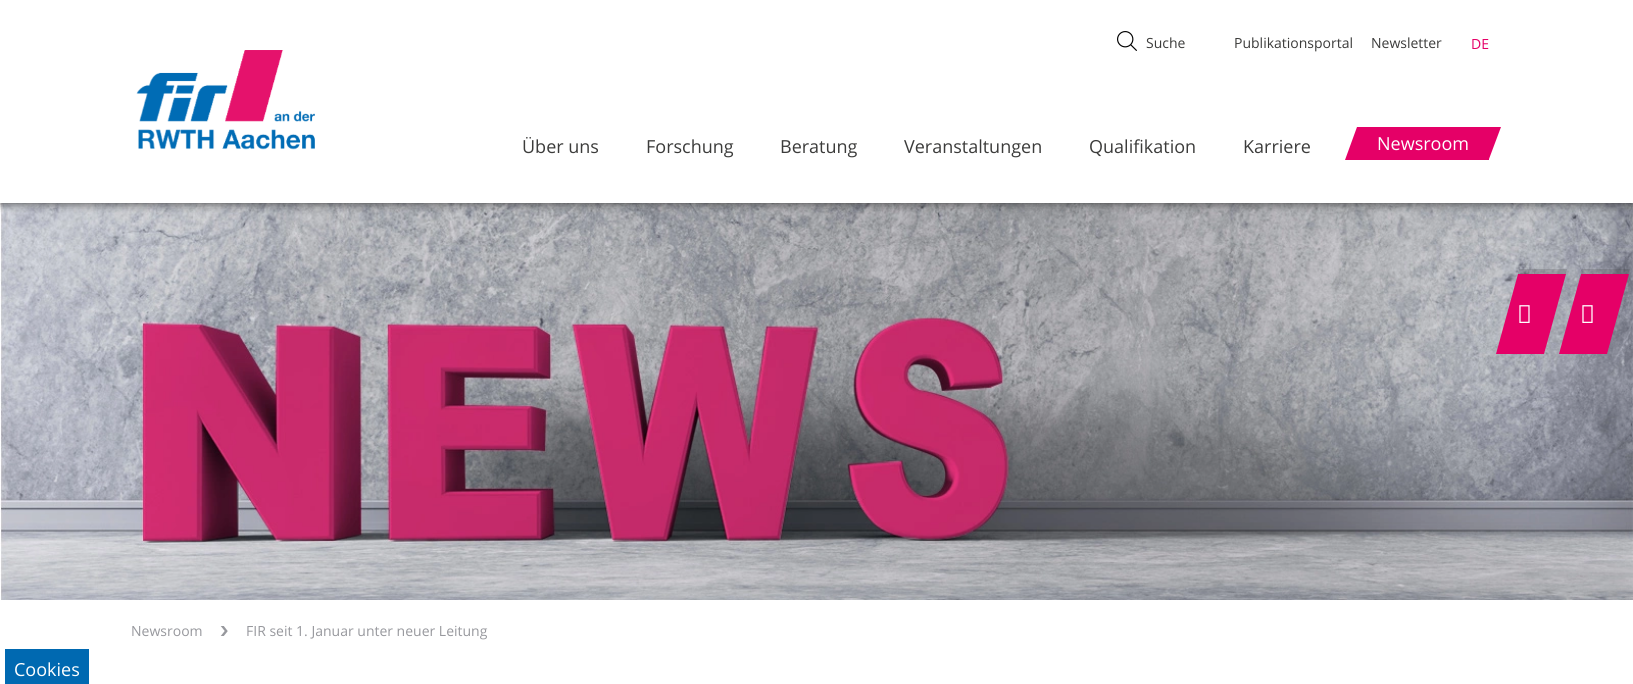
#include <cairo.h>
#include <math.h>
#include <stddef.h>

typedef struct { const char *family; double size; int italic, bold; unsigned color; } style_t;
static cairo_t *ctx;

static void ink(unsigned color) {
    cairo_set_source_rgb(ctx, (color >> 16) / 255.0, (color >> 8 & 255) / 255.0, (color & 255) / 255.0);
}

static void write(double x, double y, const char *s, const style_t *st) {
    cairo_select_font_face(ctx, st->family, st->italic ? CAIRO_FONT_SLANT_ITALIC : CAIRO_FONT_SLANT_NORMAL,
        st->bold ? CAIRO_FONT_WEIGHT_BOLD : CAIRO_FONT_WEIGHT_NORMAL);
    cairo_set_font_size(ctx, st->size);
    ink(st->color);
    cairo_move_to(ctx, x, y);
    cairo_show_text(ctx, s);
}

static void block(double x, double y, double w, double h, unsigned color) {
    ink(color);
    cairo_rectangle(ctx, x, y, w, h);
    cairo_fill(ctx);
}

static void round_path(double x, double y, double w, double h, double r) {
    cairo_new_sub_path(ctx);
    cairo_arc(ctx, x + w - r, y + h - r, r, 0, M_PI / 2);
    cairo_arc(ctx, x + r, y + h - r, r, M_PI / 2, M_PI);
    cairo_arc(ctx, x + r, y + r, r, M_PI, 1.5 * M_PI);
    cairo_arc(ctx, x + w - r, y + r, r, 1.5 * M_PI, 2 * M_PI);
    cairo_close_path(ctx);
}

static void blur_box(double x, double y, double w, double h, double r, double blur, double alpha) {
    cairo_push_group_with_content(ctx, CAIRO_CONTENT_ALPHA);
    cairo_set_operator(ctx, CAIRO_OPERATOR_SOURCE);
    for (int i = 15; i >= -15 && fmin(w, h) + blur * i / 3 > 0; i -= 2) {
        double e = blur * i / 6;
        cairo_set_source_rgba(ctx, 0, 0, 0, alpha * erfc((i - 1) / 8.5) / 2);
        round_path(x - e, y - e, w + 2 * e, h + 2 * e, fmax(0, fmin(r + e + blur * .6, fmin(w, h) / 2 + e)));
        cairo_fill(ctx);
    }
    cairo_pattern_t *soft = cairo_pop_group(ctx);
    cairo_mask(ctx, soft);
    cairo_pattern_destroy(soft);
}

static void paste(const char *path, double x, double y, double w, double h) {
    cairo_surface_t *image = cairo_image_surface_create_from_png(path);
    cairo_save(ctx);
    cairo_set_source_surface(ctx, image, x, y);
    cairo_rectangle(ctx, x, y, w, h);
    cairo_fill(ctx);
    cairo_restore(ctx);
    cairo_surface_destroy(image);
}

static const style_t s1 = {"Open Sans", 14, 0, 0, 0x3c3c3b};
static const style_t s2 = {"Open Sans", 14, 0, 0, 0xe50067};
static const style_t s3 = {"Open Sans", 18, 0, 0, 0x3c3c3b};
static const style_t s4 = {"Open Sans", 18, 0, 0, 0xffffff};
static const style_t s5 = {"Open Sans", 14, 0, 0, 0x97989d};

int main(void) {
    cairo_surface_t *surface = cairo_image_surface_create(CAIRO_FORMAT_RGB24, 1633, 684);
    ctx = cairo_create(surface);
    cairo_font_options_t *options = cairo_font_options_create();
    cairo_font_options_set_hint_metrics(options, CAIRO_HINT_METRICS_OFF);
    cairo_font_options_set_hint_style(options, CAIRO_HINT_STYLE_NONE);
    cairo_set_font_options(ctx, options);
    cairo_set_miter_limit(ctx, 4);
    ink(0xffffff);
    cairo_paint(ctx);
    paste("pic3.png", 0, 203, 1633, 397);
    ink(0x3c3c3b);
    blur_box(0, 0, 1633, 203, 0, 5, 1);
    block(0, 0, 1633, 203, 0xffffff);
    paste("pic1.png", 136, 50, 179, 100);
    paste("pic2.png", 1117, 31, 20, 20);
    write(1146, 48, "Suche", &s1);
    write(1234, 48, "Publikationsportal", &s1);
    write(1371, 48, "Newsletter", &s1);
    write(1471, 49, "DE", &s2);
    write(522, 153, "Über uns", &s3);
    write(646, 153, "Forschung", &s3);
    write(780, 153, "Beratung", &s3);
    write(904, 153, "Veranstaltungen", &s3);
    write(1089, 153, "Qualifikation", &s3);
    write(1243, 153, "Karriere", &s3);
    block(1357, 127, 132, 33, 0xe50067);
    cairo_new_path(ctx);
    cairo_move_to(ctx, 1357, 160);
    cairo_line_to(ctx, 1345, 160);
    cairo_line_to(ctx, 1357, 127);
    cairo_close_path(ctx);
    cairo_fill(ctx);
    write(1377, 150, "Newsroom", &s4);
    ink(0xe50067);
    cairo_new_path(ctx);
    cairo_move_to(ctx, 1489, 127);
    cairo_line_to(ctx, 1501, 127);
    cairo_line_to(ctx, 1489, 159);
    cairo_close_path(ctx);
    cairo_fill(ctx);
    write(131, 636, "Newsroom", &s5);
    paste("pic4.png", 220, 626, 8, 10);
    write(246, 636, "FIR seit 1. Januar unter neuer Leitung", &s5);
    cairo_set_source_rgba(ctx, 0.251, 0.251, 0.251, 0.2);
    cairo_new_path(ctx);
    cairo_move_to(ctx, 1519, 269);
    cairo_line_to(ctx, 1518, 274);
    cairo_line_to(ctx, 1566, 274);
    cairo_line_to(ctx, 1546, 349);
    cairo_line_to(ctx, 1567, 269);
    cairo_close_path(ctx);
    cairo_fill(ctx);
    ink(0xe50067);
    cairo_new_path(ctx);
    cairo_move_to(ctx, 1518, 274);
    cairo_line_to(ctx, 1566, 274);
    cairo_line_to(ctx, 1544, 354);
    cairo_line_to(ctx, 1496, 354);
    cairo_close_path(ctx);
    cairo_fill(ctx);
    paste("pic5.png", 1519, 305, 11, 18);
    cairo_set_source_rgba(ctx, 0.251, 0.251, 0.251, 0.2);
    cairo_new_path(ctx);
    cairo_move_to(ctx, 1582, 269);
    cairo_line_to(ctx, 1581, 274);
    cairo_line_to(ctx, 1629, 274);
    cairo_line_to(ctx, 1609, 349);
    cairo_line_to(ctx, 1630, 269);
    cairo_close_path(ctx);
    cairo_fill(ctx);
    ink(0xe50067);
    cairo_new_path(ctx);
    cairo_move_to(ctx, 1581, 274);
    cairo_line_to(ctx, 1629, 274);
    cairo_line_to(ctx, 1607, 354);
    cairo_line_to(ctx, 1559, 354);
    cairo_close_path(ctx);
    cairo_fill(ctx);
    paste("pic5.png", 1582, 305, 11, 18);
    block(5, 649, 84, 35, 0x0069b1);
    write(14, 676, "Cookies", &s4);
    cairo_surface_write_to_png(surface, "screenshot.png");
    cairo_font_options_destroy(options);
    cairo_destroy(ctx);
    cairo_surface_destroy(surface);
    return 0;
}
